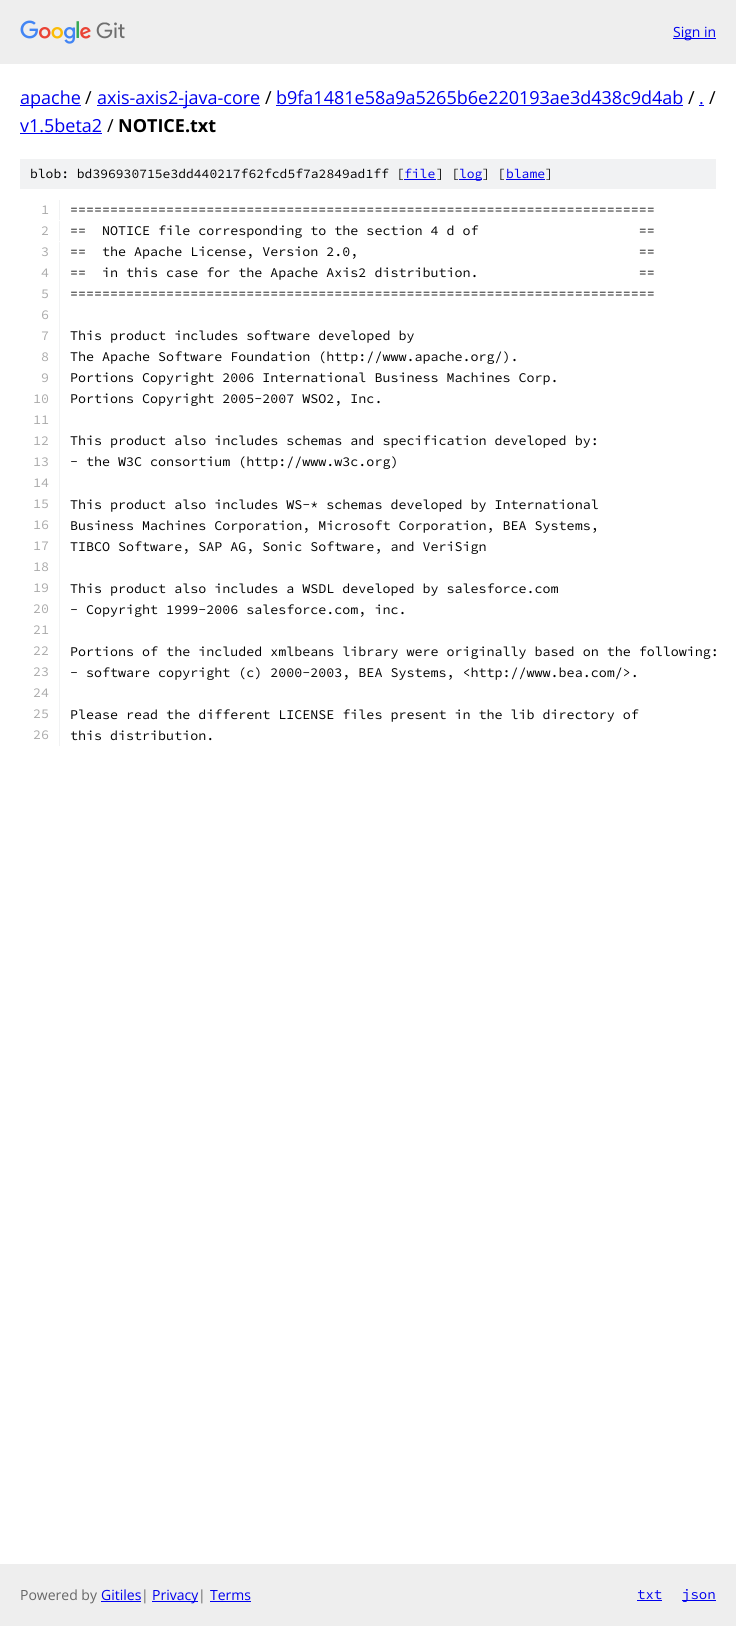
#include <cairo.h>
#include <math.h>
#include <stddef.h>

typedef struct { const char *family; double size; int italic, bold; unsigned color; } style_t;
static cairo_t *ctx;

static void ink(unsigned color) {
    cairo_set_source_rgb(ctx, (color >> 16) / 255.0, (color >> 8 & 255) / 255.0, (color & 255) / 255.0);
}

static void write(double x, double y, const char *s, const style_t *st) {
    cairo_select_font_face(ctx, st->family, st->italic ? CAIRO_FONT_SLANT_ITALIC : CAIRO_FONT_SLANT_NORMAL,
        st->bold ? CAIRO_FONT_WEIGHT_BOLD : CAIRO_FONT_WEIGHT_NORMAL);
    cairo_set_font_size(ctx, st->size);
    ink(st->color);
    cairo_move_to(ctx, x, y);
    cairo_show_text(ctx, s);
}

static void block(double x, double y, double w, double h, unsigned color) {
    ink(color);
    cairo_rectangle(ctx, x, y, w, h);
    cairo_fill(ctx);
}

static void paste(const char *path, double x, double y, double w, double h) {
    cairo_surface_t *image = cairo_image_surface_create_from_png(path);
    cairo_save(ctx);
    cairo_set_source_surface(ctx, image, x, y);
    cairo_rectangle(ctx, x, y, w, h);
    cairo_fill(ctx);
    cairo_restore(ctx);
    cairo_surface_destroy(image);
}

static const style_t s1 = {"Open Sans", 14, 0, 0, 0x0000ee};
static const style_t s2 = {"Open Sans", 18, 0, 0, 0x0000ee};
static const style_t s3 = {"Open Sans", 18, 0, 0, 0x000000};
static const style_t s4 = {"Open Sans", 18, 0, 1, 0x000000};
static const style_t s5 = {"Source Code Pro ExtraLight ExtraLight", 13, 0, 0, 0x000000};
static const style_t s6 = {"Source Code Pro ExtraLight ExtraLight", 13, 0, 0, 0x0000ee};
static const style_t s7 = {"Source Code Pro ExtraLight ExtraLight", 13.35, 0, 0, 0xaaaaaa};
static const style_t s8 = {"Source Code Pro ExtraLight ExtraLight", 13.35, 0, 0, 0x000000};
static const style_t s9 = {"Open Sans", 14, 0, 0, 0x666666};
static const style_t s10 = {"Source Code Pro ExtraLight ExtraLight", 14, 0, 0, 0x0000ee};

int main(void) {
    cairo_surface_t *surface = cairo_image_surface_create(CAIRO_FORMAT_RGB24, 736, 1626);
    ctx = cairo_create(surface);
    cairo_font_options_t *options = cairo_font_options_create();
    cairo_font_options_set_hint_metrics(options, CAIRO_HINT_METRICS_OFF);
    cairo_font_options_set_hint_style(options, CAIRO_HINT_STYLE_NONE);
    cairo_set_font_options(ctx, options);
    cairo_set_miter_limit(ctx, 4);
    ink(0xffffff);
    cairo_paint(ctx);
    block(0, 0, 736, 64, 0xeeeeee);
    paste("pic1.png", 20, 20, 105, 24);
    block(673, 38, 43, 1, 0x0000ee);
    write(673, 37, "Sign in", &s1);
    block(20, 105, 61, 1, 0x0000ee);
    write(20, 104, "apache", &s2);
    write(85, 104, "/", &s3);
    block(97, 105, 163, 1, 0x0000ee);
    write(97, 104, "axis-axis2-java-core", &s2);
    write(265, 104, "/", &s3);
    write(276, 104, "b9fa1481e58a9a5265b6e220193ae3d438c9d4ab", &s2);
    block(276, 105, 407, 1, 0x0000ee);
    write(688, 104, "/", &s3);
    write(699, 104, ".", &s2);
    block(699, 105, 5, 1, 0x0000ee);
    write(709, 104, "/", &s3);
    write(20, 132, "v1.5beta2", &s2);
    block(20, 133, 82, 1, 0x0000ee);
    write(107, 132, "/", &s3);
    write(118, 132, "NOTICE.txt", &s4);
    block(20, 159, 696, 30, 0xf1f2f3);
    write(30, 178, "blob: bd396930715e3dd440217f62fcd5f7a2849ad1ff [", &s5);
    write(404, 178, "file", &s6);
    block(404, 179, 32, 1, 0x0000ee);
    write(436, 178, "] [", &s5);
    block(459, 179, 23, 1, 0x0000ee);
    write(459, 178, "log", &s6);
    write(482, 178, "] [", &s5);
    write(506, 178, "blame", &s6);
    block(506, 179, 39, 1, 0x0000ee);
    write(545, 178, "]", &s5);
    block(59, 200, 1, 20, 0xf1f2f3);
    write(41, 214, "1", &s7);
    write(70, 214, "=========================================================================", &s8);
    block(59, 221, 1, 20, 0xf1f2f3);
    write(41, 235, "2", &s7);
    write(70, 235, "==  NOTICE file corresponding to the section 4 d of                    ==", &s8);
    block(59, 242, 1, 504, 0xf1f2f3);
    write(41, 256, "3", &s7);
    write(70, 256, "==  the Apache License, Version 2.0,                                   ==", &s8);
    write(41, 277, "4", &s7);
    write(70, 277, "==  in this case for the Apache Axis2 distribution.                    ==", &s8);
    write(41, 298, "5", &s7);
    write(70, 298, "=========================================================================", &s8);
    write(41, 319, "6", &s7);
    write(41, 340, "7", &s7);
    write(70, 340, "This product includes software developed by", &s8);
    write(41, 361, "8", &s7);
    write(70, 361, "The Apache Software Foundation (http://www.apache.org/).", &s8);
    write(41, 382, "9", &s7);
    write(70, 382, "Portions Copyright 2006 International Business Machines Corp.", &s8);
    write(33, 403, "10", &s7);
    write(70, 403, "Portions Copyright 2005-2007 WSO2, Inc.", &s8);
    write(33, 424, "11", &s7);
    write(33, 445, "12", &s7);
    write(70, 445, "This product also includes schemas and specification developed by:", &s8);
    write(33, 466, "13", &s7);
    write(70, 466, "- the W3C consortium (http://www.w3c.org)", &s8);
    write(33, 487, "14", &s7);
    write(33, 508, "15", &s7);
    write(70, 509, "This product also includes WS-* schemas developed by International", &s8);
    write(33, 529, "16", &s7);
    write(70, 530, "Business Machines Corporation, Microsoft Corporation, BEA Systems,", &s8);
    write(33, 550, "17", &s7);
    write(70, 551, "TIBCO Software, SAP AG, Sonic Software, and VeriSign", &s8);
    write(33, 571, "18", &s7);
    write(33, 592, "19", &s7);
    write(70, 593, "This product also includes a WSDL developed by salesforce.com", &s8);
    write(33, 613, "20", &s7);
    write(70, 614, "- Copyright 1999-2006 salesforce.com, inc.", &s8);
    write(33, 634, "21", &s7);
    write(33, 655, "22", &s7);
    write(70, 656, "Portions of the included xmlbeans library were originally based on the following:", &s8);
    write(33, 676, "23", &s7);
    write(70, 677, "- software copyright (c) 2000-2003, BEA Systems, <http://www.bea.com/>.", &s8);
    write(33, 697, "24", &s7);
    write(33, 718, "25", &s7);
    write(70, 719, "Please read the different LICENSE files present in the lib directory of", &s8);
    write(33, 739, "26", &s7);
    write(70, 740, "this distribution.", &s8);
    block(0, 1564, 736, 62, 0xeeeeee);
    write(20, 1600, "Powered by", &s9);
    write(101, 1600, "Gitiles", &s1);
    block(101, 1601, 40, 1, 0x0000ee);
    write(141, 1600, "|", &s9);
    block(152, 1601, 46, 1, 0x0000ee);
    write(152, 1600, "Privacy", &s1);
    write(198, 1600, "|", &s9);
    write(210, 1600, "Terms", &s1);
    block(210, 1601, 41, 1, 0x0000ee);
    write(637, 1599, "txt", &s10);
    block(637, 1600, 25, 1, 0x0000ee);
    block(682, 1600, 34, 1, 0x0000ee);
    write(682, 1599, "json", &s10);
    cairo_surface_write_to_png(surface, "screenshot.png");
    cairo_font_options_destroy(options);
    cairo_destroy(ctx);
    cairo_surface_destroy(surface);
    return 0;
}
